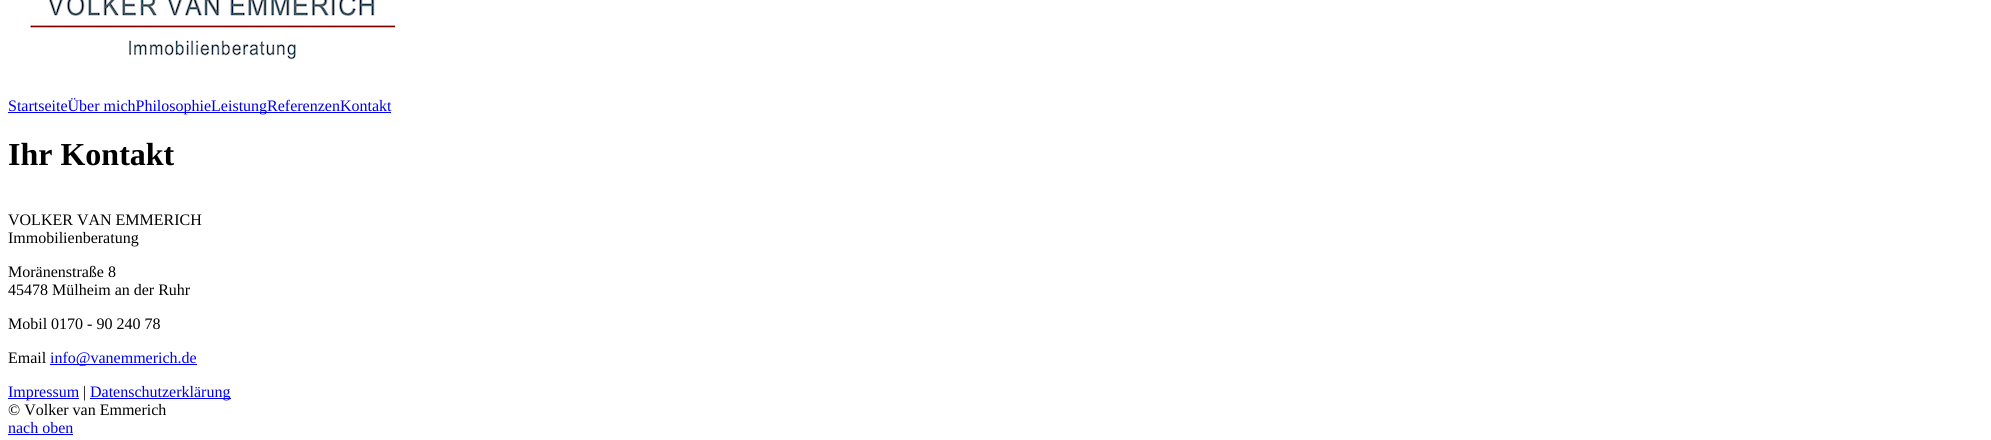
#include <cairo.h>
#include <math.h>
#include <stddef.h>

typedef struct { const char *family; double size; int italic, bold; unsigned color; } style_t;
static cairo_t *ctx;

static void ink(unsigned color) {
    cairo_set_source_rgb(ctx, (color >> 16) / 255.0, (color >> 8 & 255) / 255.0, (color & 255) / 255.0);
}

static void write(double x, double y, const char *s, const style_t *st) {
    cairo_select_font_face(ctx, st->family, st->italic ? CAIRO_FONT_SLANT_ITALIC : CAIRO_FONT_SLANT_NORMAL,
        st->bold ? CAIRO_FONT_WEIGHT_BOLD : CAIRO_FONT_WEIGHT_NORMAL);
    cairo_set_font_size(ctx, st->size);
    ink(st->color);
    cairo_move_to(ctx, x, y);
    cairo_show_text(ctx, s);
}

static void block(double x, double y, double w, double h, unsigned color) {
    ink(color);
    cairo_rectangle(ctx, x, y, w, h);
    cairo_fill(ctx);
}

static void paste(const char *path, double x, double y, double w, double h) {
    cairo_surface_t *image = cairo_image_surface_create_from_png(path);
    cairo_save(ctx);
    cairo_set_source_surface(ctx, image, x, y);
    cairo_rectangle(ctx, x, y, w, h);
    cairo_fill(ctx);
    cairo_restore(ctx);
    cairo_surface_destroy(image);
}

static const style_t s1 = {"Liberation Serif", 16, 0, 0, 0x0000ee};
static const style_t s2 = {"Liberation Serif", 32, 0, 1, 0x000000};
static const style_t s3 = {"Liberation Serif", 16, 0, 0, 0x000000};

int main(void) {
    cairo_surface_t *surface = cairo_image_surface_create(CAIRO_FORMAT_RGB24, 1991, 440);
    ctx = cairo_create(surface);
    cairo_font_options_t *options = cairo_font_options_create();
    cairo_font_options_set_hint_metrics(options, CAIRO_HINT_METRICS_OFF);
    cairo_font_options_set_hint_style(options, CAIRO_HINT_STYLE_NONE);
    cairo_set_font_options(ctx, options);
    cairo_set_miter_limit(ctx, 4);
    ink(0xffffff);
    cairo_paint(ctx);
    paste("pic1.png", 30, 0, 366, 60);
    block(8, 112, 383, 1, 0x0000ee);
    write(8, 111, "StartseiteÜber michPhilosophieLeistungReferenzenKontakt", &s1);
    write(8, 165, "Ihr Kontakt", &s2);
    write(8, 225, "VOLKER VAN EMMERICH", &s3);
    write(8, 243, "Immobilienberatung", &s3);
    write(8, 277, "Moränenstraße 8", &s3);
    write(8, 295, "45478 Mülheim an der Ruhr", &s3);
    write(8, 329, "Mobil 0170 - 90 240 78", &s3);
    write(8, 363, "Email", &s3);
    block(50, 364, 147, 1, 0x0000ee);
    write(50, 363, "info@vanemmerich.de", &s1);
    block(8, 398, 71, 1, 0x0000ee);
    write(8, 397, "Impressum", &s1);
    write(83, 397, "|", &s3);
    block(90, 398, 141, 1, 0x0000ee);
    write(90, 397, "Datenschutzerklärung", &s1);
    write(8, 415, "© Volker van Emmerich", &s3);
    write(8, 433, "nach oben", &s1);
    block(8, 434, 65, 1, 0x0000ee);
    cairo_surface_write_to_png(surface, "screenshot.png");
    cairo_font_options_destroy(options);
    cairo_destroy(ctx);
    cairo_surface_destroy(surface);
    return 0;
}
